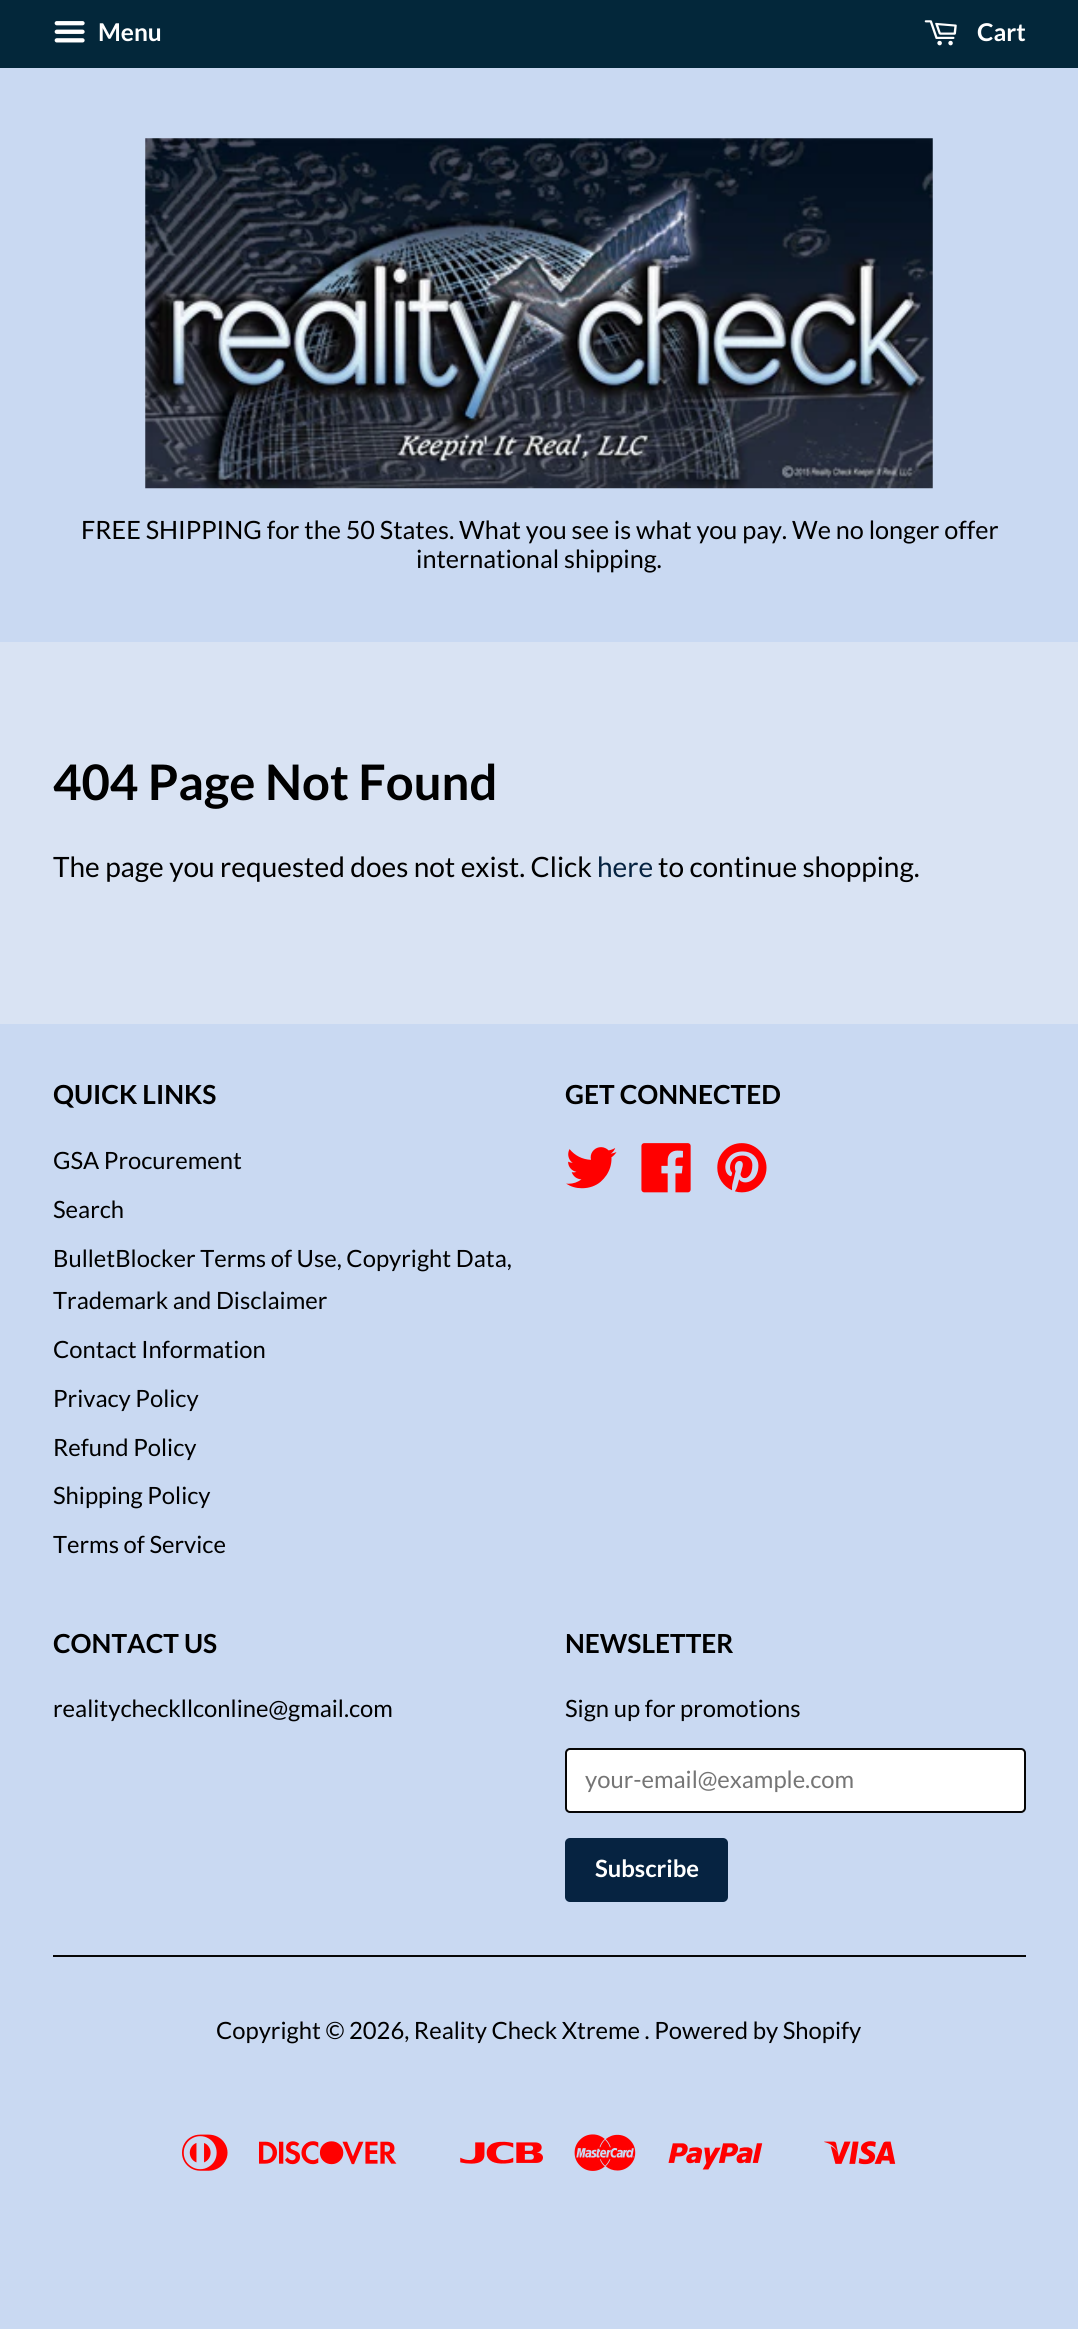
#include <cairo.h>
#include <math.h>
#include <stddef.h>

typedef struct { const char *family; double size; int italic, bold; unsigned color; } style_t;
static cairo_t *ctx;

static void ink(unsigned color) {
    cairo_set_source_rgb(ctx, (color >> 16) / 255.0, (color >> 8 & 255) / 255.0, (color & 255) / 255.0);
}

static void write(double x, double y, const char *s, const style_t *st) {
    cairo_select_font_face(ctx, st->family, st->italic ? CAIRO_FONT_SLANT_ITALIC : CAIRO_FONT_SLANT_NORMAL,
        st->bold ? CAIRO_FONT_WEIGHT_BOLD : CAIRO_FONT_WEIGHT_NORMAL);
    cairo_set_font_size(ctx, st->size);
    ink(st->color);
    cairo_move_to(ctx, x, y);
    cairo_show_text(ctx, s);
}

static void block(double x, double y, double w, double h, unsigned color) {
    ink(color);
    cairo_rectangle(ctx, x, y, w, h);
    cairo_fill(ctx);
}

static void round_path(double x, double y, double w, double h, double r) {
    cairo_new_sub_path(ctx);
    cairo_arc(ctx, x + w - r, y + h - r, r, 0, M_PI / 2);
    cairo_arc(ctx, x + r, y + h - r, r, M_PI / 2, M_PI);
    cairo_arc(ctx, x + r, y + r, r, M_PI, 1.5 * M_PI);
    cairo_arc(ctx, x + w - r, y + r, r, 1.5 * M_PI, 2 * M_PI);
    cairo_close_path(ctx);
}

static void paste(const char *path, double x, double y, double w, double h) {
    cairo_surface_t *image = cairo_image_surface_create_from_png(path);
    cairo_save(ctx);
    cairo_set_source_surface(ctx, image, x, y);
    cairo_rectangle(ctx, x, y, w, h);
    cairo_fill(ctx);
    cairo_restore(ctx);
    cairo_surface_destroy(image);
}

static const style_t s1 = {"Lato", 24.5, 0, 1, 0xffffff};
static const style_t s2 = {"Lato", 25.2, 0, 0, 0x000000};
static const style_t s3 = {"Lato", 49, 0, 1, 0x000000};
static const style_t s4 = {"Lato", 28, 0, 0, 0x000000};
static const style_t s5 = {"Lato", 28, 0, 0, 0x062341};
static const style_t s6 = {"Lato", 26.25, 0, 1, 0x000000};
static const style_t s7 = {"Lato", 23.8, 0, 0, 0x000000};
static const style_t s8 = {"Lato", 23.8, 0, 0, 0x757575};
static const style_t s9 = {"Lato", 23.8, 0, 1, 0xffffff};

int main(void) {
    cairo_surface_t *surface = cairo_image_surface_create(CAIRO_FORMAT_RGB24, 1078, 2329);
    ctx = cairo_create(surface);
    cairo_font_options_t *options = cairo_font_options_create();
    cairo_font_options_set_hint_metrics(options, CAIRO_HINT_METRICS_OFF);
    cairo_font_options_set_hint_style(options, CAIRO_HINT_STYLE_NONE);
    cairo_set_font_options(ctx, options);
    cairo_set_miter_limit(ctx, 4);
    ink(0xc9d9f2);
    cairo_paint(ctx);
    block(0, 642, 1078, 382, 0xd9e3f3);
    block(0, 0, 1078, 68, 0x03273a);
    paste("pic1.png", 54, 21, 31, 22);
    write(98, 41, "Menu", &s1);
    paste("pic2.png", 924, 20, 33, 26);
    write(977, 41, "Cart", &s1);
    paste("pic3.png", 145, 138, 788, 351);
    write(81, 539, "FREE SHIPPING for the 50 States. What you see is what you pay. We no longer offer", &s2);
    write(416, 568, "international shipping.", &s2);
    write(53, 800, "404 Page Not Found", &s3);
    write(53, 877, "The page you requested does not exist. Click", &s4);
    write(597, 877, "here", &s5);
    write(658, 877, "to continue shopping.", &s4);
    write(53, 1104, "QUICK LINKS", &s6);
    write(53, 1169, "GSA Procurement", &s7);
    write(53, 1218, "Search", &s7);
    write(53, 1267, "BulletBlocker Terms of Use, Copyright Data,", &s7);
    write(53, 1309, "Trademark and Disclaimer", &s7);
    write(53, 1358, "Contact Information", &s7);
    write(53, 1407, "Privacy Policy", &s7);
    write(53, 1456, "Refund Policy", &s7);
    write(53, 1504, "Shipping Policy", &s7);
    write(53, 1553, "Terms of Service", &s7);
    write(565, 1104, "GET CONNECTED", &s6);
    paste("pic4.png", 566, 1147, 51, 42);
    paste("pic5.png", 641, 1143, 50, 50);
    paste("pic6.png", 717, 1143, 50, 50);
    write(53, 1653, "CONTACT US", &s6);
    write(53, 1717, "realitycheckllconline@gmail.com", &s7);
    write(565, 1653, "NEWSLETTER", &s6);
    write(565, 1717, "Sign up for promotions", &s7);
    ink(0xffffff);
    round_path(566, 1749, 459, 63, 4);
    cairo_fill_preserve(ctx);
    ink(0x060606);
    cairo_stroke(ctx);
    write(585, 1788, "your-email@example.com", &s8);
    ink(0x062341);
    round_path(565, 1838, 163, 64, 5);
    cairo_fill(ctx);
    write(595, 1877, "Subscribe", &s9);
    block(53, 1955, 973, 2, 0x060606);
    write(216, 2039, "Copyright © 2026, Reality Check Xtreme . Powered by Shopify", &s7);
    paste("pic7.png", 182, 2134, 46, 37);
    paste("pic8.png", 259, 2141, 138, 24);
    paste("pic9.png", 460, 2141, 83, 23);
    paste("pic10.png", 574, 2134, 62, 37);
    paste("pic11.png", 668, 2143, 95, 27);
    paste("pic12.png", 824, 2141, 72, 24);
    cairo_surface_write_to_png(surface, "screenshot.png");
    cairo_font_options_destroy(options);
    cairo_destroy(ctx);
    cairo_surface_destroy(surface);
    return 0;
}
